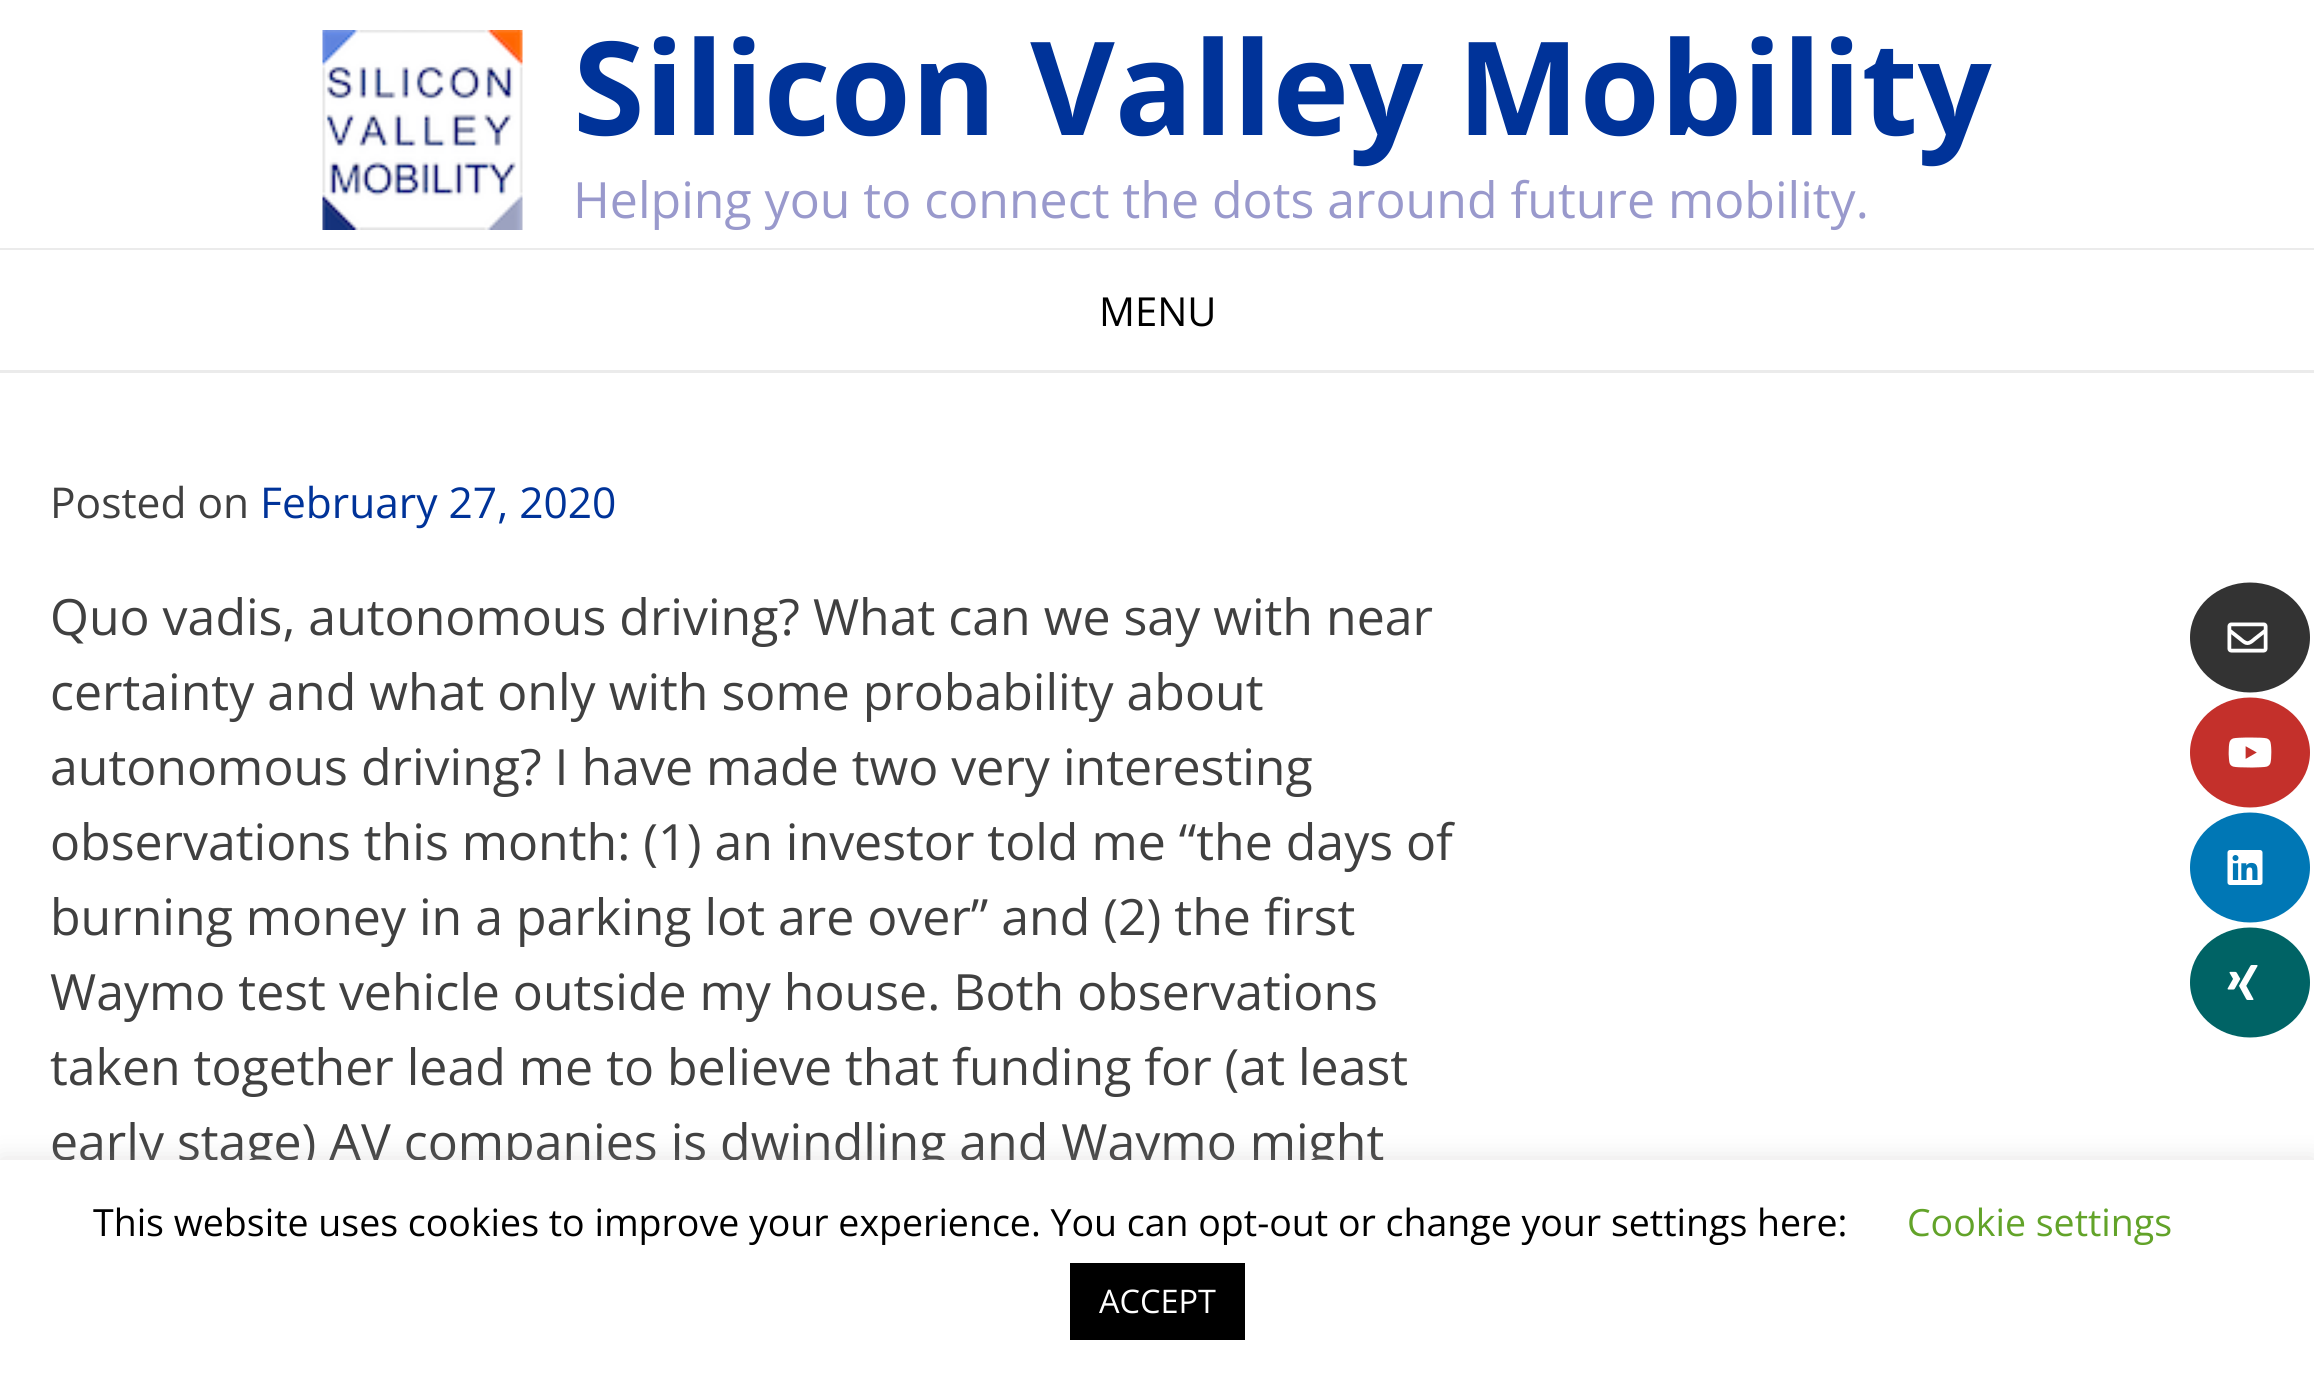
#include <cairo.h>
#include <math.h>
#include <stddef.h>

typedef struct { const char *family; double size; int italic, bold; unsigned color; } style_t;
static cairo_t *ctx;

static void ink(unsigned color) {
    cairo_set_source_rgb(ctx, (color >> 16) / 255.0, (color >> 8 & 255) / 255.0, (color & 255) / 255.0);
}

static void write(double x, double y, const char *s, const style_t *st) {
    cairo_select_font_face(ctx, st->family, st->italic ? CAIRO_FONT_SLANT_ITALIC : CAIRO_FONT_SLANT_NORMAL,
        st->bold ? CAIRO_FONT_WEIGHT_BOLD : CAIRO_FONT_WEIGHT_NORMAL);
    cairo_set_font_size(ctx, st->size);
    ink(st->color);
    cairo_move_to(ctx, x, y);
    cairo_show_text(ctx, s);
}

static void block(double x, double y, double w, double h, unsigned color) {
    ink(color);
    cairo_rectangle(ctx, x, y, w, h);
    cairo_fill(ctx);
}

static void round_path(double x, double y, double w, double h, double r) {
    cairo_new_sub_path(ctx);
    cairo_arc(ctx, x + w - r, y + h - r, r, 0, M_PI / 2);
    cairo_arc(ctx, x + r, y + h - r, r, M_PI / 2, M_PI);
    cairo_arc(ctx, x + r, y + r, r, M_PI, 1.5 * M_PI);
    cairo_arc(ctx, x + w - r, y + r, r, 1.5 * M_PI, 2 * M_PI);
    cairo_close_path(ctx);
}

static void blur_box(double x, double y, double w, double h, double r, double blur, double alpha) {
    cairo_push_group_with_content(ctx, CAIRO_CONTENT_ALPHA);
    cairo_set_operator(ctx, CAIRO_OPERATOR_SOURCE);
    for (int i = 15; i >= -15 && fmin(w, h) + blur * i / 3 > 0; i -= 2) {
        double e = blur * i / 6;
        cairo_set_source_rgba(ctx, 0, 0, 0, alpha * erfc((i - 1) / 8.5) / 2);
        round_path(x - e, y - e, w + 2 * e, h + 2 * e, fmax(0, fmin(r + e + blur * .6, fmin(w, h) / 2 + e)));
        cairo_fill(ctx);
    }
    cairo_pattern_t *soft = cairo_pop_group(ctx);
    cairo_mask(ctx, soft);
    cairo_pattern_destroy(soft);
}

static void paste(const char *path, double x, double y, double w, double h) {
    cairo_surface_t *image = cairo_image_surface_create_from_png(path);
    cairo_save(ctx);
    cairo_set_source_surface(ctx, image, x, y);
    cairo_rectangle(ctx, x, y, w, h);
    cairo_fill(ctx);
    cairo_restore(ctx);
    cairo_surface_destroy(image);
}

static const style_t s1 = {"Open Sans", 130, 0, 1, 0x003399};
static const style_t s2 = {"Open Sans", 50, 0, 0, 0x9999cc};
static const style_t s3 = {"Open Sans", 40, 0, 0, 0x000000};
static const style_t s4 = {"Open Sans", 42.5, 0, 0, 0x404040};
static const style_t s5 = {"Open Sans", 42.5, 0, 0, 0x003399};
static const style_t s6 = {"Open Sans", 50, 0, 0, 0x404040};
static const style_t s7 = {"Open Sans", 37.5, 0, 0, 0x000000};
static const style_t s8 = {"Open Sans", 37.5, 0, 0, 0x62a329};
static const style_t s9 = {"Open Sans", 32.5, 0, 0, 0xffffff};

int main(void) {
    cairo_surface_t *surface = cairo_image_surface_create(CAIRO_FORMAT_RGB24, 2314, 1381);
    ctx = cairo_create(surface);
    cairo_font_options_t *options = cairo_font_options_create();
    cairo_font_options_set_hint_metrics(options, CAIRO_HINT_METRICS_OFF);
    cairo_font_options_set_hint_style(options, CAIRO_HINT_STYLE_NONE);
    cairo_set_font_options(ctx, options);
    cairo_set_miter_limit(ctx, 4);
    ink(0xffffff);
    cairo_paint(ctx);
    block(0, 370, 2314, 3, 0xebebeb);
    paste("pic1.png", 322, 30, 201, 200);
    write(573, 135, "Silicon Valley Mobility", &s1);
    write(573, 218, "Helping you to connect the dots around future mobility.", &s2);
    block(0, 248, 2314, 2, 0xebebeb);
    write(1099, 326, "MENU", &s3);
    write(50, 518, "Posted on", &s4);
    write(260, 518, "February 27, 2020", &s5);
    write(50, 635, "Quo vadis, autonomous driving? What can we say with near", &s6);
    write(50, 710, "certainty and what only with some probability about", &s6);
    write(50, 785, "autonomous driving? I have made two very interesting", &s6);
    write(50, 860, "observations this month: (1) an investor told me “the days of", &s6);
    write(50, 935, "burning money in a parking lot are over” and (2) the first", &s6);
    write(50, 1010, "Waymo test vehicle outside my house. Both observations", &s6);
    write(50, 1085, "taken together lead me to believe that funding for (at least", &s6);
    write(50, 1160, "early stage) AV companies is dwindling and Waymo might", &s6);
    ink(0x333333);
    cairo_new_path(ctx);
    cairo_move_to(ctx, 2250, 582.5);
    cairo_curve_to(ctx, 2283, 582.5, 2310, 607, 2310, 637.5);
    cairo_curve_to(ctx, 2310, 668, 2283, 692.5, 2250, 692.5);
    cairo_curve_to(ctx, 2217, 692.5, 2190, 668, 2190, 637.5);
    cairo_curve_to(ctx, 2190, 607, 2217, 582.5, 2250, 582.5);
    cairo_close_path(ctx);
    cairo_fill(ctx);
    paste("pic2.png", 2227, 622, 41, 31);
    ink(0xc4302b);
    cairo_new_path(ctx);
    cairo_move_to(ctx, 2250, 697.5);
    cairo_curve_to(ctx, 2283, 697.5, 2310, 722, 2310, 752.5);
    cairo_curve_to(ctx, 2310, 783, 2283, 807.5, 2250, 807.5);
    cairo_curve_to(ctx, 2217, 807.5, 2190, 783, 2190, 752.5);
    cairo_curve_to(ctx, 2190, 722, 2217, 697.5, 2250, 697.5);
    cairo_close_path(ctx);
    cairo_fill(ctx);
    paste("pic3.png", 2228, 737, 44, 31);
    ink(0x0077b5);
    cairo_new_path(ctx);
    cairo_move_to(ctx, 2250, 812.5);
    cairo_curve_to(ctx, 2283, 812.5, 2310, 837, 2310, 867.5);
    cairo_curve_to(ctx, 2310, 898, 2283, 922.5, 2250, 922.5);
    cairo_curve_to(ctx, 2217, 922.5, 2190, 898, 2190, 867.5);
    cairo_curve_to(ctx, 2190, 837, 2217, 812.5, 2250, 812.5);
    cairo_close_path(ctx);
    cairo_fill(ctx);
    paste("pic4.png", 2227, 850, 36, 35);
    ink(0x006365);
    cairo_new_path(ctx);
    cairo_move_to(ctx, 2250, 927.5);
    cairo_curve_to(ctx, 2283, 927.5, 2310, 952, 2310, 982.5);
    cairo_curve_to(ctx, 2310, 1013, 2283, 1037.5, 2250, 1037.5);
    cairo_curve_to(ctx, 2217, 1037.5, 2190, 1013, 2190, 982.5);
    cairo_curve_to(ctx, 2190, 952, 2217, 927.5, 2250, 927.5);
    cairo_close_path(ctx);
    cairo_fill(ctx);
    paste("pic5.png", 2227, 965, 31, 35);
    ink(0xacabab);
    blur_box(0, 1158, 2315, 222, 0, 12.5, 0.3);
    block(0, 1160, 2314, 221, 0xffffff);
    write(93, 1236, "This website uses cookies to improve your experience. You can opt-out or change your settings here:", &s7);
    write(1907, 1236, "Cookie settings", &s8);
    block(1070, 1263, 175, 77, 0x000000);
    write(1099, 1313, "ACCEPT", &s9);
    cairo_surface_write_to_png(surface, "screenshot.png");
    cairo_font_options_destroy(options);
    cairo_destroy(ctx);
    cairo_surface_destroy(surface);
    return 0;
}
